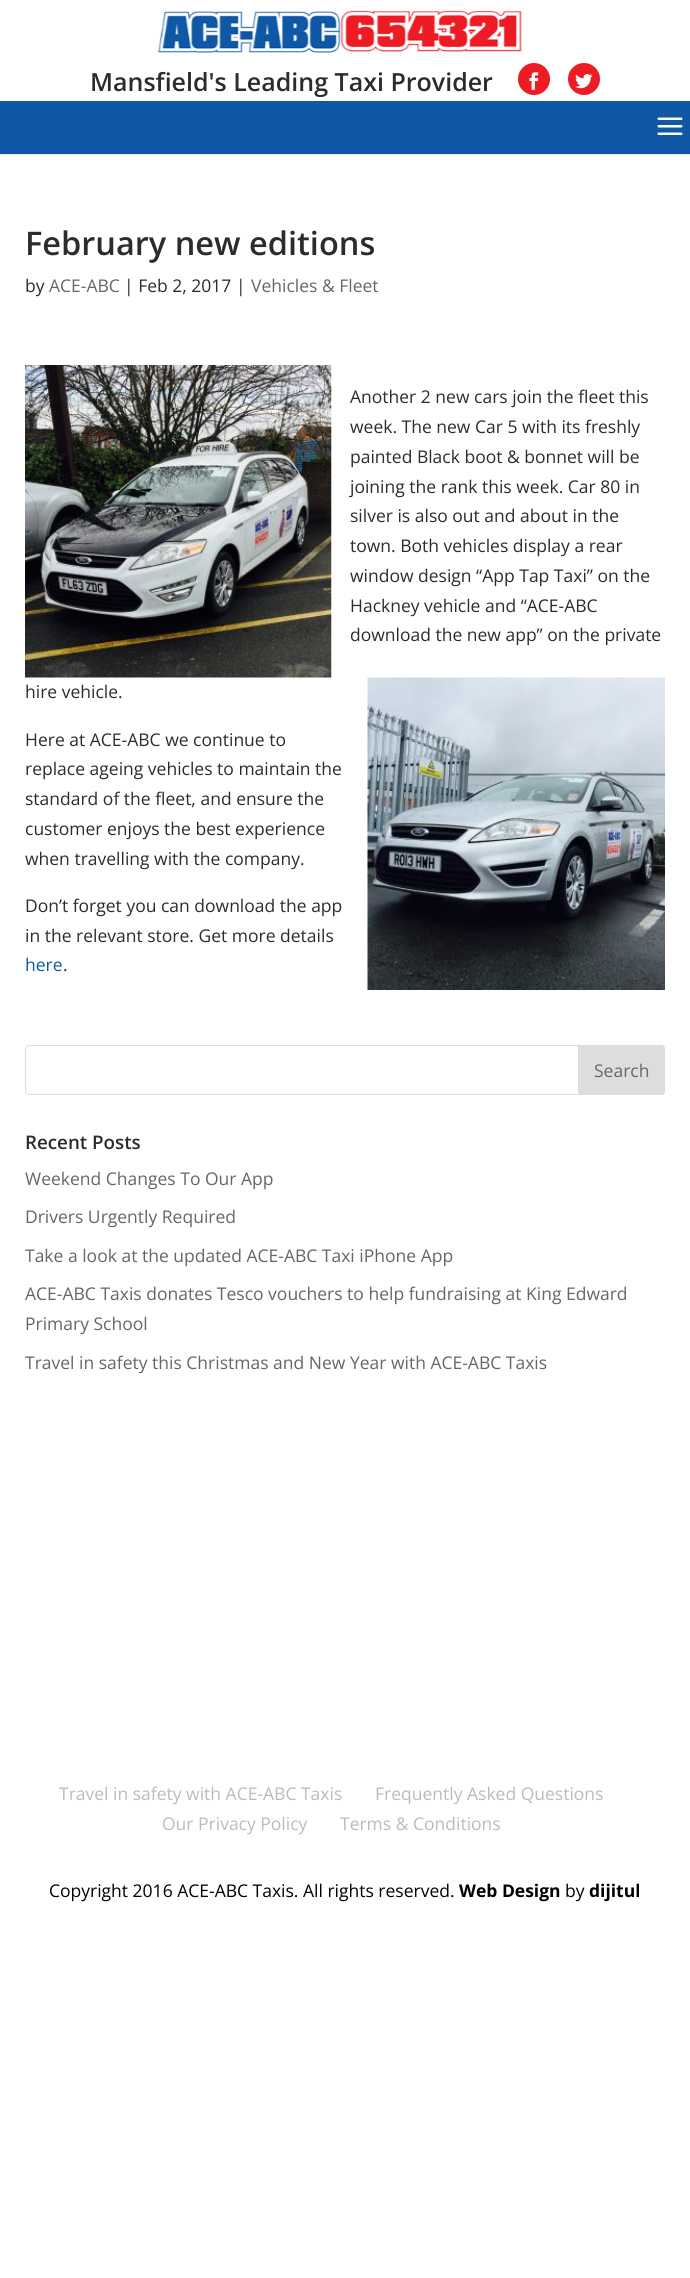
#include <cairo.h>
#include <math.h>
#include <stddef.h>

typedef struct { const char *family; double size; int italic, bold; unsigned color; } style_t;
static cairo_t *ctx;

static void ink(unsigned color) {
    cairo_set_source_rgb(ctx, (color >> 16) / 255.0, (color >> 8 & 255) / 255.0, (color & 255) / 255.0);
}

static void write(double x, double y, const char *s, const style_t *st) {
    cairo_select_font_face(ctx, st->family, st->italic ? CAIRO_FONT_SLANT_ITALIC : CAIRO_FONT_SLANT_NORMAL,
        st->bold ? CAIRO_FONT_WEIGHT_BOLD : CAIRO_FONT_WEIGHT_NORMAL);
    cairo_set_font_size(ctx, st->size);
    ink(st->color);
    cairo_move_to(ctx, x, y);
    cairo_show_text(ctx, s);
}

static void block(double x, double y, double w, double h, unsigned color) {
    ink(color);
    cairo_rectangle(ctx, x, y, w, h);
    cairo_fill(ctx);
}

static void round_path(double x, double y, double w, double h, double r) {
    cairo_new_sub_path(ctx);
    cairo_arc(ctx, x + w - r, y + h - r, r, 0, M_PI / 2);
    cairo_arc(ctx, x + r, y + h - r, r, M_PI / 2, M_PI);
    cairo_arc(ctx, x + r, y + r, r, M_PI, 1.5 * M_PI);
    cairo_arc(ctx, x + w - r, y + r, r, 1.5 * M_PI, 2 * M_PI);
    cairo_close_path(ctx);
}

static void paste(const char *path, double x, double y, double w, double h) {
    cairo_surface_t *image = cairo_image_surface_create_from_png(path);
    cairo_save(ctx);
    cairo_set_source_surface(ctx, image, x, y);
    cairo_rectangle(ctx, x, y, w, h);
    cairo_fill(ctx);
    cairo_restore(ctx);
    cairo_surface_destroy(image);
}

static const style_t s1 = {"Open Sans SemiBold", 25, 0, 0, 0x2c2c2c};
static const style_t s2 = {"Open Sans SemiBold", 32.5, 0, 0, 0x2c2c2c};
static const style_t s3 = {"Open Sans", 17.5, 0, 0, 0x2c2c2c};
static const style_t s4 = {"Open Sans", 17.5, 0, 0, 0x666666};
static const style_t s5 = {"Open Sans", 17.5, 0, 0, 0x1058a5};
static const style_t s6 = {"Open Sans SemiBold", 18.75, 0, 0, 0x2c2c2c};
static const style_t s7 = {"Open Sans", 17.5, 0, 0, 0xbbbbbb};
static const style_t s8 = {"Open Sans", 17.5, 0, 0, 0x000000};
static const style_t s9 = {"Open Sans", 17.5, 0, 1, 0x000000};

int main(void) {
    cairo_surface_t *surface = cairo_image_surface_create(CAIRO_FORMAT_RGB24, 690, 2278);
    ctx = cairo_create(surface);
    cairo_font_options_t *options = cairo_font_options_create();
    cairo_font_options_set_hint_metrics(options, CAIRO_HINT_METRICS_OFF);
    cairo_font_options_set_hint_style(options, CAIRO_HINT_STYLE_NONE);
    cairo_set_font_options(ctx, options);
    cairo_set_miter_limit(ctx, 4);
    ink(0xffffff);
    cairo_paint(ctx);
    block(0, 154, 690, 1, 0xe6e6e6);
    paste("pic1.png", 158, 10, 364, 43);
    write(90, 91, "Mansfield's Leading Taxi Provider", &s1);
    ink(0xed1c24);
    cairo_new_path(ctx);
    cairo_arc(ctx, 534, 79, 16, 0, 2 * M_PI);
    cairo_fill(ctx);
    paste("pic2.png", 529, 72, 10, 18);
    cairo_arc(ctx, 584, 79, 16, 0, 2 * M_PI);
    cairo_fill(ctx);
    paste("pic3.png", 575, 74, 18, 15);
    block(0, 101, 690, 53, 0x1058a5);
    paste("pic4.png", 657, 117, 26, 18);
    write(25, 255, "February new editions", &s2);
    write(25, 292, "by", &s3);
    write(49, 292, "ACE-ABC", &s4);
    write(124, 292, "| Feb 2, 2017 |", &s3);
    write(251, 292, "Vehicles & Fleet", &s4);
    paste("pic5.png", 25, 365, 307, 313);
    write(350, 403, "Another 2 new cars join the fleet this", &s3);
    write(350, 433, "week. The new Car 5 with its freshly", &s3);
    write(350, 463, "painted Black boot & bonnet will be", &s3);
    write(350, 493, "joining the rank this week. Car 80 in", &s3);
    write(350, 522, "silver is also out and about in the", &s3);
    write(350, 552, "town. Both vehicles display a rear", &s3);
    write(350, 582, "window design “App Tap Taxi” on the", &s3);
    write(350, 612, "Hackney vehicle and “ACE-ABC", &s3);
    write(350, 641, "download the new app” on the private", &s3);
    write(25, 698, "hire vehicle.", &s3);
    paste("pic6.png", 367, 677, 298, 313);
    write(25, 746, "Here at ACE-ABC we continue to", &s3);
    write(25, 775, "replace ageing vehicles to maintain the", &s3);
    write(25, 805, "standard of the fleet, and ensure the", &s3);
    write(25, 835, "customer enjoys the best experience", &s3);
    write(25, 865, "when travelling with the company.", &s3);
    write(25, 912, "Don’t forget you can download the app", &s3);
    write(25, 942, "in the relevant store. Get more details", &s3);
    write(25, 971, "here", &s5);
    write(63, 971, ".", &s3);
    round_path(25.5, 1045.5, 639, 49, 3.5);
    ink(0xdddddd);
    cairo_set_line_width(ctx, 1);
    cairo_stroke(ctx);
    cairo_new_path(ctx);
    cairo_move_to(ctx, 578.5, 1045.5);
    cairo_line_to(ctx, 661, 1045.5);
    cairo_curve_to(ctx, 663, 1045.5, 664.5, 1047, 664.5, 1049);
    cairo_line_to(ctx, 664.5, 1091);
    cairo_curve_to(ctx, 664.5, 1093, 663, 1094.5, 661, 1094.5);
    cairo_line_to(ctx, 578.5, 1094.5);
    cairo_close_path(ctx);
    cairo_fill_preserve(ctx);
    cairo_stroke(ctx);
    write(594, 1077, "Search", &s4);
    write(25, 1149, "Recent Posts", &s6);
    write(25, 1185, "Weekend Changes To Our App", &s4);
    write(25, 1223, "Drivers Urgently Required", &s4);
    write(25, 1262, "Take a look at the updated ACE-ABC Taxi iPhone App", &s4);
    write(25, 1300, "ACE-ABC Taxis donates Tesco vouchers to help fundraising at King Edward", &s4);
    write(25, 1330, "Primary School", &s4);
    write(25, 1369, "Travel in safety this Christmas and New Year with ACE-ABC Taxis", &s4);
    write(59, 1800, "Travel in safety with ACE-ABC Taxis", &s7);
    write(375, 1800, "Frequently Asked Questions", &s7);
    write(162, 1830, "Our Privacy Policy", &s7);
    write(340, 1830, "Terms & Conditions", &s7);
    write(49, 1897, "Copyright 2016 ACE-ABC Taxis. All rights reserved.", &s8);
    write(459, 1897, "Web Design", &s9);
    write(565, 1897, "by", &s8);
    write(589, 1897, "dijitul", &s9);
    cairo_surface_write_to_png(surface, "screenshot.png");
    cairo_font_options_destroy(options);
    cairo_destroy(ctx);
    cairo_surface_destroy(surface);
    return 0;
}
